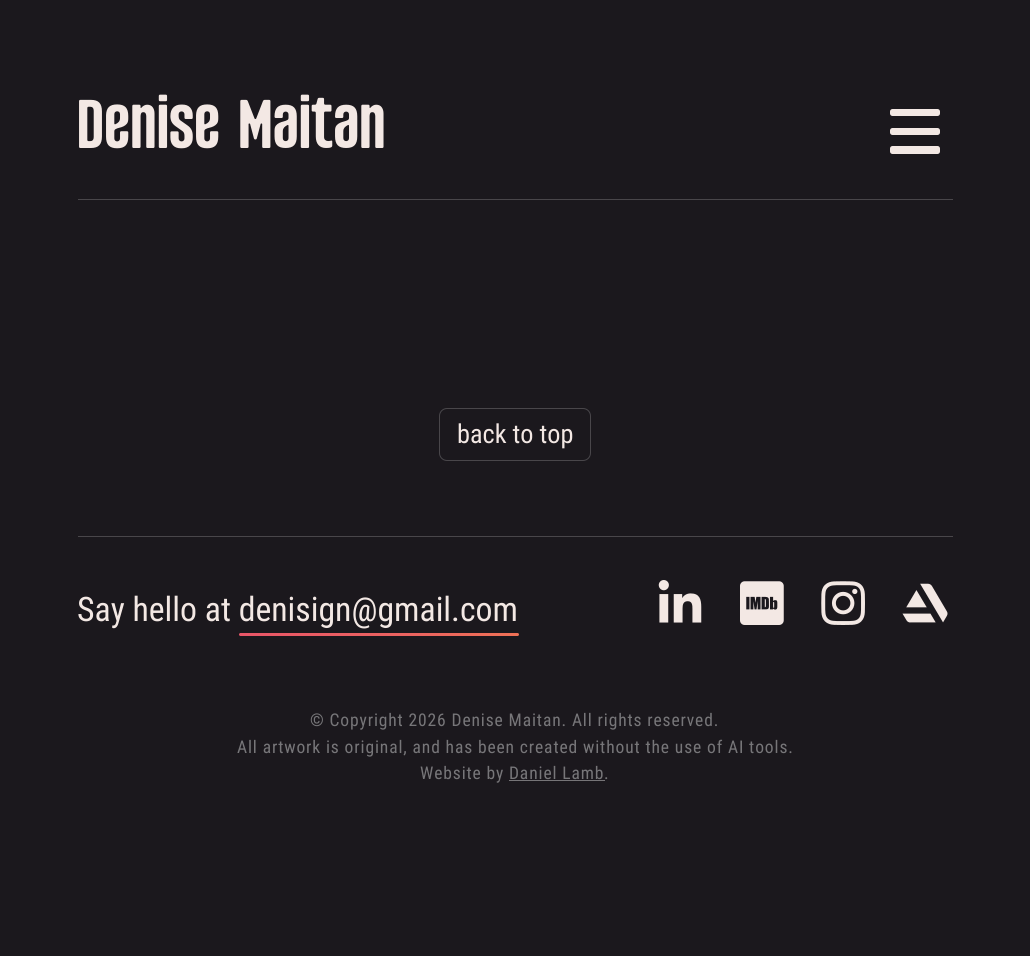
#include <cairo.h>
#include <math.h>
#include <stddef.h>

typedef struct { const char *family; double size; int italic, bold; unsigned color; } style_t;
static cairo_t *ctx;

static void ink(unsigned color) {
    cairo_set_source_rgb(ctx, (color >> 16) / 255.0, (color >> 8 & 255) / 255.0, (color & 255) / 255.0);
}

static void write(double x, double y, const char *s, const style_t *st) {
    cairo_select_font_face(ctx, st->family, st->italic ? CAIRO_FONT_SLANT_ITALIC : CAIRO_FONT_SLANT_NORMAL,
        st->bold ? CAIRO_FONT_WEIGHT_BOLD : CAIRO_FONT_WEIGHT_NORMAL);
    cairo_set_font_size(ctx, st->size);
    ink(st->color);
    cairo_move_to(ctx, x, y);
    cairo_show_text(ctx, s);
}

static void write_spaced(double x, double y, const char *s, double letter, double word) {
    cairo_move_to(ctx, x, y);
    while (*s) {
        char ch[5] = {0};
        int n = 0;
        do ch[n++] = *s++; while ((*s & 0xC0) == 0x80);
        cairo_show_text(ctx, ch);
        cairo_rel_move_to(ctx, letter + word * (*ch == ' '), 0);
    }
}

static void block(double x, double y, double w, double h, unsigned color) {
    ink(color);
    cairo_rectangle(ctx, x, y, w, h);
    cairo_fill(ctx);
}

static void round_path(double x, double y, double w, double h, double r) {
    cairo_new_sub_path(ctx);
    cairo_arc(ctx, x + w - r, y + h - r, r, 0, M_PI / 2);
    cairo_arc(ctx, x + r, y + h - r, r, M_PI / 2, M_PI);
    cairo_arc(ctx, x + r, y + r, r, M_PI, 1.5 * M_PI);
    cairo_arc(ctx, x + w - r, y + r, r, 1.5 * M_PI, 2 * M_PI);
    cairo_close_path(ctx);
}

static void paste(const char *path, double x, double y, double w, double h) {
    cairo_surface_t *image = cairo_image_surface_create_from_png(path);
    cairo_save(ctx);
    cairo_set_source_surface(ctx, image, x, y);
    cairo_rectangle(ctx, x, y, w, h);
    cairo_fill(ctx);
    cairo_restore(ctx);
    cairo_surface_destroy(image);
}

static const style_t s1 = {"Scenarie", 68.75, 0, 0, 0xf3e8e4};
static const style_t s2 = {"Roboto Condensed", 26.25, 0, 0, 0xf3e8e4};
static const style_t s3 = {"Roboto Condensed", 33.75, 0, 0, 0xf3e8e4};

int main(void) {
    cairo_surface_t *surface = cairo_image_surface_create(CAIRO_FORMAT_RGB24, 1030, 956);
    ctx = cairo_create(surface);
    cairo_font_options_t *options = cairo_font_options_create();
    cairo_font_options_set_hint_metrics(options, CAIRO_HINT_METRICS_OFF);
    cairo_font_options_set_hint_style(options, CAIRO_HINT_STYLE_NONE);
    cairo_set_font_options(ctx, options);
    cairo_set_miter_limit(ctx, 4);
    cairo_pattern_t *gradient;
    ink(0x1b181d);
    cairo_paint(ctx);
    block(78, 199, 875, 1, 0x49464a);
    block(509, 780, 96, 1, 0x767477);
    block(78, 536, 875, 1, 0x49464a);
    write(77, 148, "Denise Maitan", &s1);
    round_path(890, 109, 50, 7, 2.5);
    cairo_fill(ctx);
    round_path(890, 128, 50, 7, 2.5);
    cairo_fill(ctx);
    round_path(890, 146, 50, 8, 2.5);
    cairo_fill(ctx);
    round_path(439.5, 408.5, 151, 52, 7.5);
    cairo_set_source_rgba(ctx, 1, 1, 1, 0.2);
    cairo_set_line_width(ctx, 1);
    cairo_stroke(ctx);
    write(457, 443, "back to top", &s2);
    write(77, 621, "Say hello at denisign@gmail.com", &s3);
    gradient = cairo_pattern_create_linear(239, 634, 519, 634);
    cairo_pattern_add_color_stop_rgba(gradient, 0, 0.914, 0.337, 0.408, 1);
    cairo_pattern_add_color_stop_rgba(gradient, 0.64, 0.925, 0.392, 0.373, 1);
    cairo_pattern_add_color_stop_rgba(gradient, 1, 0.937, 0.443, 0.337, 1);
    cairo_set_source(ctx, gradient);
    cairo_pattern_destroy(gradient);
    round_path(239, 633, 280, 3, 1.5);
    cairo_fill(ctx);
    paste("pic1.png", 658, 580, 44, 43);
    paste("pic2.png", 740, 581, 44, 44);
    paste("pic3.png", 821, 581, 44, 44);
    paste("pic4.png", 902, 583, 46, 40);
    cairo_set_font_size(ctx, 17.5);
    ink(0x777679);
    write_spaced(310, 726, "© Copyright 2026 Denise Maitan. All rights reserved.", 0.88, 0);
    write_spaced(237, 753, "All artwork is original, and has been created without the use of AI tools.", 0.88, 0);
    write_spaced(420, 779, "Website by", 0.88, 0);
    write_spaced(509, 779, "Daniel Lamb", 0.88, 0);
    write_spaced(604, 779, ".", 0.88, 0);
    cairo_surface_write_to_png(surface, "screenshot.png");
    cairo_font_options_destroy(options);
    cairo_destroy(ctx);
    cairo_surface_destroy(surface);
    return 0;
}
